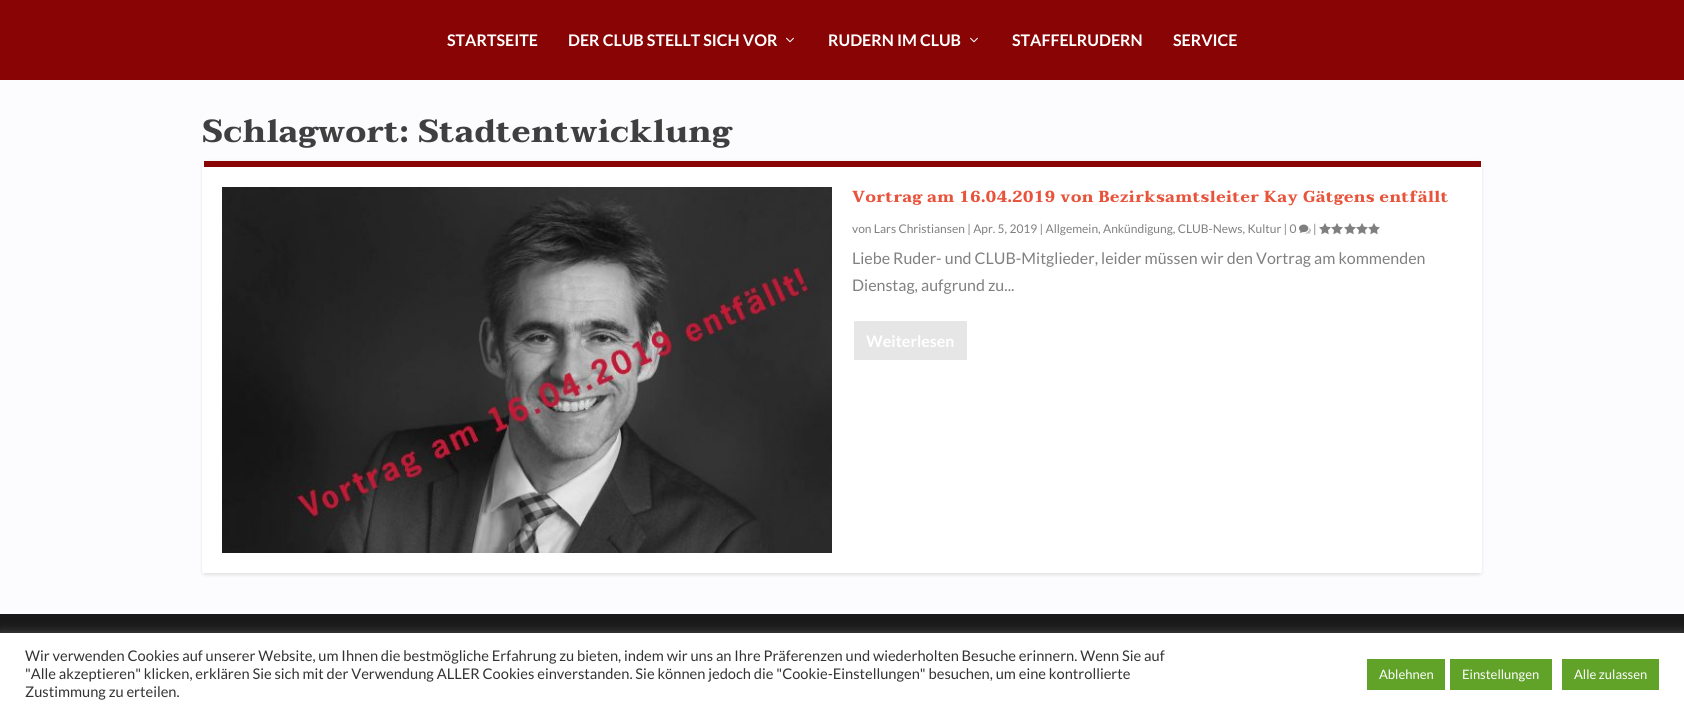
#include <cairo.h>
#include <math.h>
#include <stddef.h>

typedef struct { const char *family; double size; int italic, bold; unsigned color; } style_t;
static cairo_t *ctx;

static void ink(unsigned color) {
    cairo_set_source_rgb(ctx, (color >> 16) / 255.0, (color >> 8 & 255) / 255.0, (color & 255) / 255.0);
}

static void write(double x, double y, const char *s, const style_t *st) {
    cairo_select_font_face(ctx, st->family, st->italic ? CAIRO_FONT_SLANT_ITALIC : CAIRO_FONT_SLANT_NORMAL,
        st->bold ? CAIRO_FONT_WEIGHT_BOLD : CAIRO_FONT_WEIGHT_NORMAL);
    cairo_set_font_size(ctx, st->size);
    ink(st->color);
    cairo_move_to(ctx, x, y);
    cairo_show_text(ctx, s);
}

static void write_spaced(double x, double y, const char *s, double letter, double word) {
    cairo_move_to(ctx, x, y);
    while (*s) {
        char ch[5] = {0};
        int n = 0;
        do ch[n++] = *s++; while ((*s & 0xC0) == 0x80);
        cairo_show_text(ctx, ch);
        cairo_rel_move_to(ctx, letter + word * (*ch == ' '), 0);
    }
}

static void block(double x, double y, double w, double h, unsigned color) {
    ink(color);
    cairo_rectangle(ctx, x, y, w, h);
    cairo_fill(ctx);
}

static void round_path(double x, double y, double w, double h, double r) {
    cairo_new_sub_path(ctx);
    cairo_arc(ctx, x + w - r, y + h - r, r, 0, M_PI / 2);
    cairo_arc(ctx, x + r, y + h - r, r, M_PI / 2, M_PI);
    cairo_arc(ctx, x + r, y + r, r, M_PI, 1.5 * M_PI);
    cairo_arc(ctx, x + w - r, y + r, r, 1.5 * M_PI, 2 * M_PI);
    cairo_close_path(ctx);
}

static void blur_box(double x, double y, double w, double h, double r, double blur, double alpha) {
    cairo_push_group_with_content(ctx, CAIRO_CONTENT_ALPHA);
    cairo_set_operator(ctx, CAIRO_OPERATOR_SOURCE);
    for (int i = 15; i >= -15 && fmin(w, h) + blur * i / 3 > 0; i -= 2) {
        double e = blur * i / 6;
        cairo_set_source_rgba(ctx, 0, 0, 0, alpha * erfc((i - 1) / 8.5) / 2);
        round_path(x - e, y - e, w + 2 * e, h + 2 * e, fmax(0, fmin(r + e + blur * .6, fmin(w, h) / 2 + e)));
        cairo_fill(ctx);
    }
    cairo_pattern_t *soft = cairo_pop_group(ctx);
    cairo_mask(ctx, soft);
    cairo_pattern_destroy(soft);
}

static void paste(const char *path, double x, double y, double w, double h) {
    cairo_surface_t *image = cairo_image_surface_create_from_png(path);
    cairo_save(ctx);
    cairo_set_source_surface(ctx, image, x, y);
    cairo_rectangle(ctx, x, y, w, h);
    cairo_fill(ctx);
    cairo_restore(ctx);
    cairo_surface_destroy(image);
}

static const style_t s1 = {"Lato", 16, 0, 1, 0xffffff};
static const style_t s2 = {"Lato", 12, 0, 0, 0x808080};
static const style_t s3 = {"Lato", 16, 0, 0, 0x808080};
static const style_t s4 = {"Lato", 14.67, 0, 0, 0x333333};
static const style_t s5 = {"Lato", 13, 0, 0, 0xffffff};

int main(void) {
    cairo_surface_t *surface = cairo_image_surface_create(CAIRO_FORMAT_RGB24, 1684, 715);
    ctx = cairo_create(surface);
    cairo_font_options_t *options = cairo_font_options_create();
    cairo_font_options_set_hint_metrics(options, CAIRO_HINT_METRICS_OFF);
    cairo_font_options_set_hint_style(options, CAIRO_HINT_STYLE_NONE);
    cairo_set_font_options(ctx, options);
    cairo_set_miter_limit(ctx, 4);
    ink(0xfcfcff);
    cairo_paint(ctx);
    block(0, 0, 1684, 80, 0x890505);
    write(447, 46, "STARTSEITE", &s1);
    write(568, 46, "DER CLUB STELLT SICH VOR", &s1);
    paste("pic1.png", 786, 37, 8, 6);
    write(828, 46, "RUDERN IM CLUB", &s1);
    paste("pic1.png", 970, 37, 8, 6);
    write(1012, 46, "STAFFELRUDERN", &s1);
    write(1173, 46, "SERVICE", &s1);
    cairo_select_font_face(ctx, "Taviraj", CAIRO_FONT_SLANT_NORMAL, CAIRO_FONT_WEIGHT_BOLD);
    cairo_set_font_size(ctx, 32);
    ink(0x3f3f40);
    write_spaced(202, 142, "Schlagwort: Stadtentwicklung", 0.5, 0);
    ink(0x000000);
    blur_box(202, 162, 1280, 413, 3, 1.5, 0.1);
    ink(0xffffff);
    round_path(202, 161, 1280, 413, 3);
    cairo_fill(ctx);
    block(204, 161, 1277, 6, 0x890505);
    ink(0xe5e5e5);
    cairo_new_path(ctx);
    cairo_move_to(ctx, 205, 574);
    cairo_line_to(ctx, 1479, 574);
    cairo_line_to(ctx, 1481, 573);
    cairo_line_to(ctx, 203, 573);
    cairo_close_path(ctx);
    cairo_fill(ctx);
    paste("pic2.png", 222, 187, 610, 366);
    cairo_set_font_size(ctx, 16);
    ink(0xe8533b);
    write_spaced(852, 202, "Vortrag am 16.04.2019 von Bezirksamtsleiter Kay Gätgens entfällt", 0.5, 0);
    write(852, 233, "von Lars Christiansen | Apr. 5, 2019 | Allgemein, Ankündigung, CLUB-News, Kultur | 0", &s2);
    paste("pic3.png", 1299, 224, 12, 10);
    write(1313, 233, "|", &s2);
    paste("pic4.png", 1319, 223, 12, 12);
    paste("pic4.png", 1331, 223, 12, 12);
    paste("pic4.png", 1344, 223, 12, 12);
    paste("pic4.png", 1356, 223, 12, 12);
    paste("pic4.png", 1368, 223, 12, 12);
    write(852, 264, "Liebe Ruder- und CLUB-Mitglieder, leider müssen wir den Vortrag am kommenden", &s3);
    write(852, 291, "Dienstag, aufgrund zu...", &s3);
    ink(0xe6e6e6);
    round_path(853, 320, 115, 41, 2);
    cairo_fill_preserve(ctx);
    ink(0xffffff);
    cairo_stroke(ctx);
    write(866, 347, "Weiterlesen", &s1);
    block(0, 614, 1684, 19, 0x191919);
    ink(0xacabab);
    blur_box(0, 632, 1684, 82, 0, 5, 0.3);
    block(0, 633, 1684, 82, 0xffffff);
    write(25, 661, "Wir verwenden Cookies auf unserer Website, um Ihnen die bestmögliche Erfahrung zu bieten, indem wir uns an Ihre Präferenzen und wiederholten Besuche erinnern. Wenn Sie auf", &s4);
    write(25, 679, "\"Alle akzeptieren\" klicken, erklären Sie sich mit der Verwendung ALLER Cookies einverstanden. Sie können jedoch die \"Cookie-Einstellungen\" besuchen, um eine kontrollierte", &s4);
    write(25, 697, "Zustimmung zu erteilen.", &s4);
    block(1367, 659, 78, 31, 0x61a229);
    write(1379, 679, "Ablehnen", &s5);
    block(1450, 659, 102, 31, 0x61a229);
    write(1462, 679, "Einstellungen", &s5);
    block(1562, 659, 97, 31, 0x61a229);
    write(1574, 679, "Alle zulassen", &s5);
    cairo_surface_write_to_png(surface, "screenshot.png");
    cairo_font_options_destroy(options);
    cairo_destroy(ctx);
    cairo_surface_destroy(surface);
    return 0;
}
